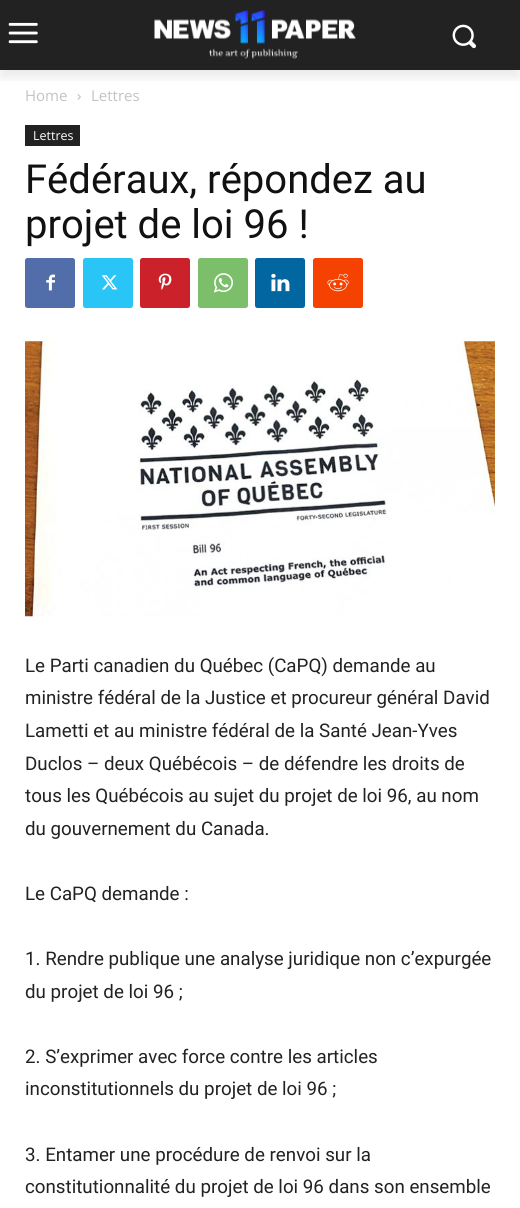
#include <cairo.h>
#include <math.h>
#include <stddef.h>

typedef struct { const char *family; double size; int italic, bold; unsigned color; } style_t;
static cairo_t *ctx;

static void ink(unsigned color) {
    cairo_set_source_rgb(ctx, (color >> 16) / 255.0, (color >> 8 & 255) / 255.0, (color & 255) / 255.0);
}

static void write(double x, double y, const char *s, const style_t *st) {
    cairo_select_font_face(ctx, st->family, st->italic ? CAIRO_FONT_SLANT_ITALIC : CAIRO_FONT_SLANT_NORMAL,
        st->bold ? CAIRO_FONT_WEIGHT_BOLD : CAIRO_FONT_WEIGHT_NORMAL);
    cairo_set_font_size(ctx, st->size);
    ink(st->color);
    cairo_move_to(ctx, x, y);
    cairo_show_text(ctx, s);
}

static void block(double x, double y, double w, double h, unsigned color) {
    ink(color);
    cairo_rectangle(ctx, x, y, w, h);
    cairo_fill(ctx);
}

static void round_path(double x, double y, double w, double h, double r) {
    cairo_new_sub_path(ctx);
    cairo_arc(ctx, x + w - r, y + h - r, r, 0, M_PI / 2);
    cairo_arc(ctx, x + r, y + h - r, r, M_PI / 2, M_PI);
    cairo_arc(ctx, x + r, y + r, r, M_PI, 1.5 * M_PI);
    cairo_arc(ctx, x + w - r, y + r, r, 1.5 * M_PI, 2 * M_PI);
    cairo_close_path(ctx);
}

static void blur_box(double x, double y, double w, double h, double r, double blur, double alpha) {
    cairo_push_group_with_content(ctx, CAIRO_CONTENT_ALPHA);
    cairo_set_operator(ctx, CAIRO_OPERATOR_SOURCE);
    for (int i = 15; i >= -15 && fmin(w, h) + blur * i / 3 > 0; i -= 2) {
        double e = blur * i / 6;
        cairo_set_source_rgba(ctx, 0, 0, 0, alpha * erfc((i - 1) / 8.5) / 2);
        round_path(x - e, y - e, w + 2 * e, h + 2 * e, fmax(0, fmin(r + e + blur * .6, fmin(w, h) / 2 + e)));
        cairo_fill(ctx);
    }
    cairo_pattern_t *soft = cairo_pop_group(ctx);
    cairo_mask(ctx, soft);
    cairo_pattern_destroy(soft);
}

static void paste(const char *path, double x, double y, double w, double h) {
    cairo_surface_t *image = cairo_image_surface_create_from_png(path);
    cairo_save(ctx);
    cairo_set_source_surface(ctx, image, x, y);
    cairo_rectangle(ctx, x, y, w, h);
    cairo_fill(ctx);
    cairo_restore(ctx);
    cairo_surface_destroy(image);
}

static const style_t s1 = {"Open Sans", 15, 0, 0, 0xc3c3c3};
static const style_t s2 = {"Open Sans", 12.5, 0, 0, 0xffffff};
static const style_t s3 = {"Roboto", 40, 0, 0, 0x111111};
static const style_t s4 = {"Roboto", 18.75, 0, 0, 0x222222};

int main(void) {
    cairo_surface_t *surface = cairo_image_surface_create(CAIRO_FORMAT_RGB24, 520, 1208);
    ctx = cairo_create(surface);
    cairo_font_options_t *options = cairo_font_options_create();
    cairo_font_options_set_hint_metrics(options, CAIRO_HINT_METRICS_OFF);
    cairo_font_options_set_hint_style(options, CAIRO_HINT_STYLE_NONE);
    cairo_set_font_options(ctx, options);
    cairo_set_miter_limit(ctx, 4);
    ink(0xffffff);
    cairo_paint(ctx);
    block(0, 0, 520, 70, 0x222222);
    paste("pic1.png", 8, 22, 30, 22);
    paste("pic2.png", 154, 9, 202, 50);
    paste("pic3.png", 452, 24, 24, 25);
    cairo_save(ctx);
    cairo_rectangle(ctx, 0, 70, 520, 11);
    cairo_clip(ctx);
    ink(0x000000);
    blur_box(0, 8, 520, 70, 0, 5, 0.08);
    cairo_restore(ctx);
    write(25, 101, "Home", &s1);
    paste("pic4.png", 77, 94, 4, 6);
    write(91, 101, "Lettres", &s1);
    block(25, 125, 55, 21, 0x222222);
    write(33, 140, "Lettres", &s2);
    write(25, 193, "Fédéraux, répondez au", &s3);
    write(25, 238, "projet de loi 96 !", &s3);
    ink(0x516eab);
    round_path(25, 258, 50, 50, 2.5);
    cairo_fill(ctx);
    paste("pic5.png", 46, 274, 9, 17);
    ink(0x29c5f6);
    round_path(83, 258, 50, 50, 2.5);
    cairo_fill(ctx);
    paste("pic6.png", 101, 275, 17, 15);
    ink(0xca212a);
    round_path(140, 258, 50, 50, 2.5);
    cairo_fill(ctx);
    paste("pic7.png", 158, 273, 14, 17);
    ink(0x7bbf6a);
    round_path(198, 258, 50, 50, 2.5);
    cairo_fill(ctx);
    paste("pic8.png", 213, 273, 20, 20);
    ink(0x0266a0);
    round_path(255, 258, 50, 50, 2.5);
    cairo_fill(ctx);
    paste("pic9.png", 271, 273, 19, 19);
    ink(0xf54200);
    round_path(313, 258, 50, 50, 2.5);
    cairo_fill(ctx);
    paste("pic10.png", 327, 273, 22, 19);
    paste("pic11.png", 25, 341, 470, 276);
    write(25, 672, "Le Parti canadien du Québec (CaPQ) demande au", &s4);
    write(25, 704, "ministre fédéral de la Justice et procureur général David", &s4);
    write(25, 737, "Lametti et au ministre fédéral de la Santé Jean-Yves", &s4);
    write(25, 770, "Duclos – deux Québécois – de défendre les droits de", &s4);
    write(25, 802, "tous les Québécois au sujet du projet de loi 96, au nom", &s4);
    write(25, 835, "du gouvernement du Canada.", &s4);
    write(25, 900, "Le CaPQ demande :", &s4);
    write(25, 965, "1. Rendre publique une analyse juridique non c’expurgée", &s4);
    write(25, 998, "du projet de loi 96 ;", &s4);
    write(25, 1063, "2. S’exprimer avec force contre les articles", &s4);
    write(25, 1095, "inconstitutionnels du projet de loi 96 ;", &s4);
    write(25, 1161, "3. Entamer une procédure de renvoi sur la", &s4);
    write(25, 1193, "constitutionnalité du projet de loi 96 dans son ensemble", &s4);
    cairo_surface_write_to_png(surface, "screenshot.png");
    cairo_font_options_destroy(options);
    cairo_destroy(ctx);
    cairo_surface_destroy(surface);
    return 0;
}
